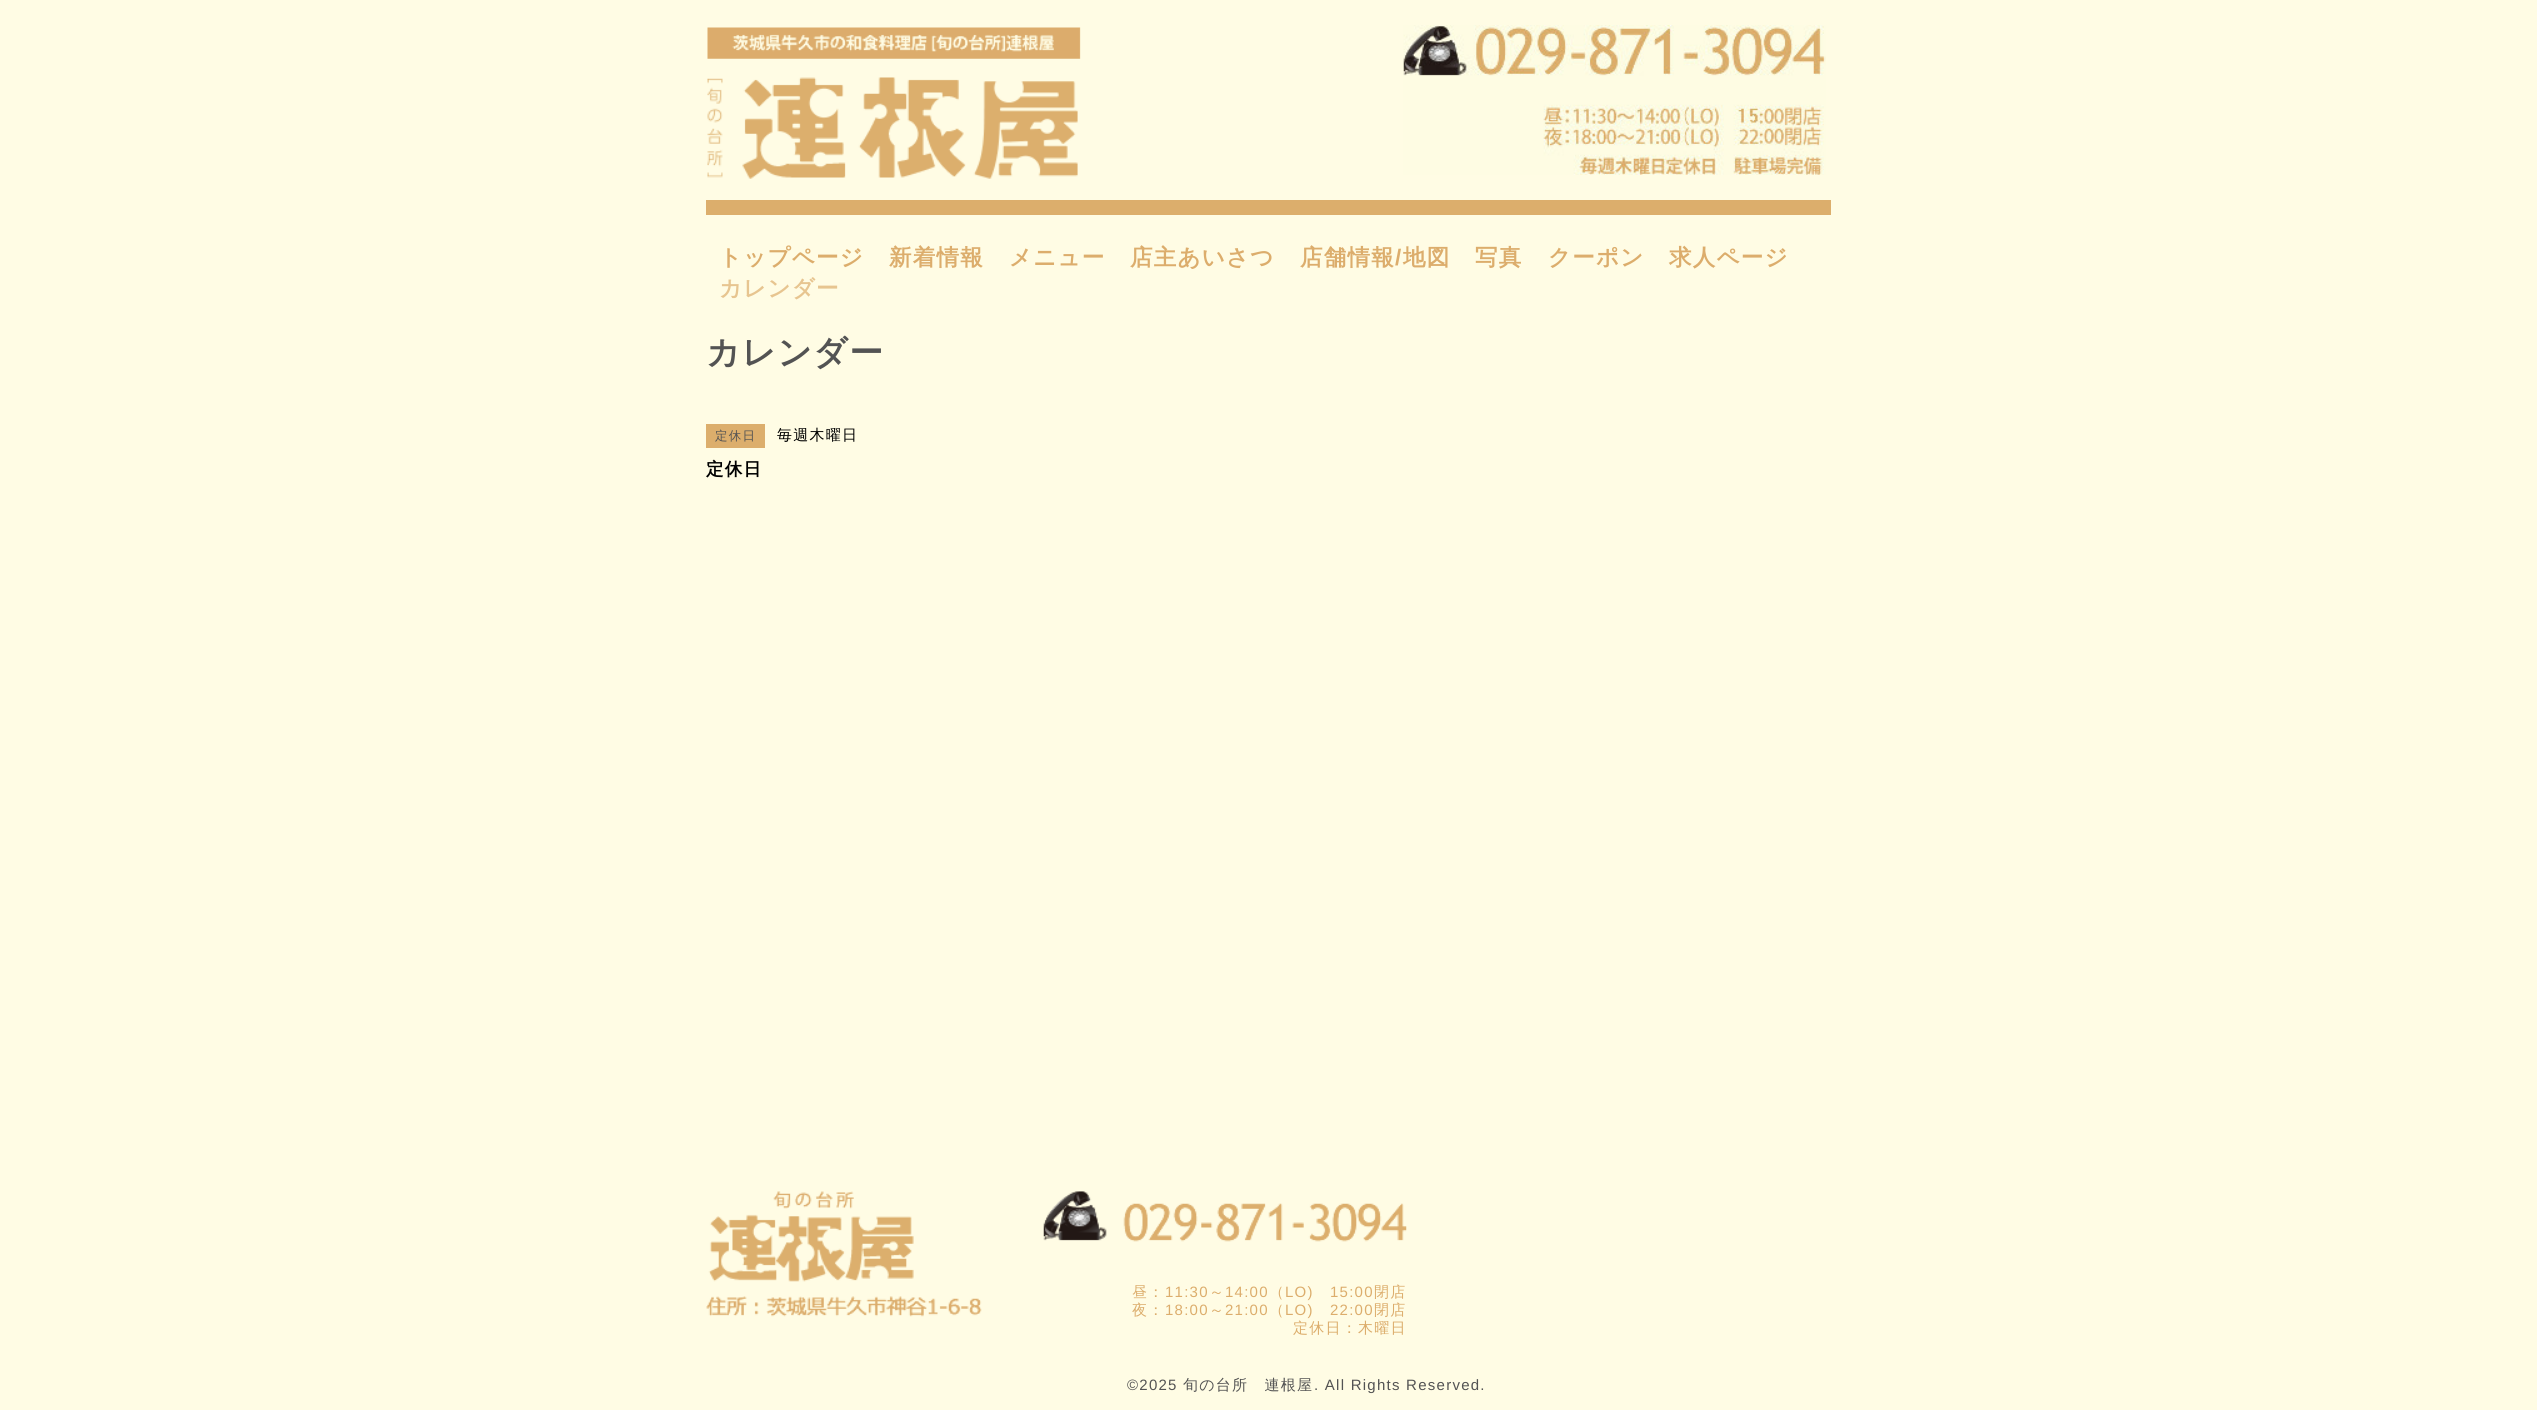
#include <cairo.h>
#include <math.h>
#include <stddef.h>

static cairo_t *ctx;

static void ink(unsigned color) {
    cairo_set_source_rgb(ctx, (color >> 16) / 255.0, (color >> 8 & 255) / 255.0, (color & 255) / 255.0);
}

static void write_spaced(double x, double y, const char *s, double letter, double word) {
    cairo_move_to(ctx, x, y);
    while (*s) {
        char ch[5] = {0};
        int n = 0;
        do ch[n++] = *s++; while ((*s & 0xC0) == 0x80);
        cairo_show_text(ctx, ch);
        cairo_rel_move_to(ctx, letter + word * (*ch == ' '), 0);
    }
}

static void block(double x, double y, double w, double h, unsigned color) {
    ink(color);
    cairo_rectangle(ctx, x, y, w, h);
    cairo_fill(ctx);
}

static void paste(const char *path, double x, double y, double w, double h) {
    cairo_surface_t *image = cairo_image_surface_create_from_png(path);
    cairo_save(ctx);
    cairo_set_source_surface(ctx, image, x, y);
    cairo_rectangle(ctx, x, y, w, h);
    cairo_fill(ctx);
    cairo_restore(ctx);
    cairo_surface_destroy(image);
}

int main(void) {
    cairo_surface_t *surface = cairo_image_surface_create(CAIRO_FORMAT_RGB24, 2537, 1410);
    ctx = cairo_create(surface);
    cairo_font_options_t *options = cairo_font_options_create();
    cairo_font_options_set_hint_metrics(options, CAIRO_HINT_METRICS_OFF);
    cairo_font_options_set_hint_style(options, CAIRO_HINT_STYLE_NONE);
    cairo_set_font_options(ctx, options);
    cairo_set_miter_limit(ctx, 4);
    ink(0xfffce4);
    cairo_paint(ctx);
    block(706, 200, 1125, 15, 0xdcae6c);
    paste("pic1.png", 707, 27, 374, 152);
    paste("pic2.png", 1403, 25, 423, 150);
    cairo_select_font_face(ctx, "WenQuanYi Zen Hei", CAIRO_FONT_SLANT_NORMAL, CAIRO_FONT_WEIGHT_BOLD);
    cairo_set_font_size(ctx, 22.5);
    ink(0xdcad6c);
    write_spaced(719, 265, "トップページ", 1.25, 0);
    write_spaced(889, 265, "新着情報", 1.25, 0);
    write_spaced(1009, 265, "メニュー", 1.25, 0);
    write_spaced(1130, 265, "店主あいさつ", 1.25, 0);
    write_spaced(1300, 265, "店舗情報", 1.25, 0);
    cairo_select_font_face(ctx, "Liberation Sans", CAIRO_FONT_SLANT_NORMAL, CAIRO_FONT_WEIGHT_BOLD);
    write_spaced(1395, 265, "/", 1.25, 0);
    cairo_select_font_face(ctx, "WenQuanYi Zen Hei", CAIRO_FONT_SLANT_NORMAL, CAIRO_FONT_WEIGHT_BOLD);
    write_spaced(1403, 265, "地図", 1.25, 0);
    write_spaced(1475, 265, "写真", 1.25, 0);
    write_spaced(1548, 265, "クーポン", 1.25, 0);
    write_spaced(1669, 265, "求人ページ", 1.25, 0);
    ink(0xe7c590);
    write_spaced(719, 296, "カレンダー", 1.25, 0);
    cairo_set_font_size(ctx, 33.75);
    ink(0x535353);
    write_spaced(706, 364, "カレンダー", 1.25, 0);
    block(706, 424, 59, 24, 0xdcae6c);
    cairo_select_font_face(ctx, "WenQuanYi Zen Hei Medium", CAIRO_FONT_SLANT_NORMAL, CAIRO_FONT_WEIGHT_NORMAL);
    cairo_set_font_size(ctx, 12.5);
    ink(0x535353);
    write_spaced(715, 440, "定休日", 1.25, 0);
    cairo_set_font_size(ctx, 15);
    ink(0x000000);
    write_spaced(777, 440, "毎週木曜日", 1.25, 0);
    cairo_select_font_face(ctx, "WenQuanYi Zen Hei", CAIRO_FONT_SLANT_NORMAL, CAIRO_FONT_WEIGHT_BOLD);
    cairo_set_font_size(ctx, 17.5);
    write_spaced(706, 475, "定休日", 1.25, 0);
    paste("pic3.png", 706, 1191, 276, 126);
    paste("pic4.png", 1043, 1191, 364, 51);
    cairo_select_font_face(ctx, "WenQuanYi Zen Hei Medium", CAIRO_FONT_SLANT_NORMAL, CAIRO_FONT_WEIGHT_NORMAL);
    cairo_set_font_size(ctx, 15);
    ink(0xdcad6c);
    write_spaced(1132, 1297, "昼：", 1.25, 0);
    cairo_select_font_face(ctx, "Liberation Sans", CAIRO_FONT_SLANT_NORMAL, CAIRO_FONT_WEIGHT_NORMAL);
    write_spaced(1165, 1297, "11:30", 1.25, 0);
    cairo_select_font_face(ctx, "WenQuanYi Zen Hei Medium", CAIRO_FONT_SLANT_NORMAL, CAIRO_FONT_WEIGHT_NORMAL);
    write_spaced(1209, 1297, "～", 1.25, 0);
    cairo_select_font_face(ctx, "Liberation Sans", CAIRO_FONT_SLANT_NORMAL, CAIRO_FONT_WEIGHT_NORMAL);
    write_spaced(1225, 1297, "14:00", 1.25, 0);
    cairo_select_font_face(ctx, "WenQuanYi Zen Hei Medium", CAIRO_FONT_SLANT_NORMAL, CAIRO_FONT_WEIGHT_NORMAL);
    write_spaced(1269, 1297, "（", 1.25, 0);
    cairo_select_font_face(ctx, "Liberation Sans", CAIRO_FONT_SLANT_NORMAL, CAIRO_FONT_WEIGHT_NORMAL);
    write_spaced(1285, 1297, "LO)", 1.25, 0);
    write_spaced(1330, 1297, "15:00", 1.25, 0);
    cairo_select_font_face(ctx, "WenQuanYi Zen Hei Medium", CAIRO_FONT_SLANT_NORMAL, CAIRO_FONT_WEIGHT_NORMAL);
    write_spaced(1374, 1297, "閉店", 1.25, 0);
    write_spaced(1132, 1315, "夜：", 1.25, 0);
    cairo_select_font_face(ctx, "Liberation Sans", CAIRO_FONT_SLANT_NORMAL, CAIRO_FONT_WEIGHT_NORMAL);
    write_spaced(1165, 1315, "18:00", 1.25, 0);
    cairo_select_font_face(ctx, "WenQuanYi Zen Hei Medium", CAIRO_FONT_SLANT_NORMAL, CAIRO_FONT_WEIGHT_NORMAL);
    write_spaced(1209, 1315, "～", 1.25, 0);
    cairo_select_font_face(ctx, "Liberation Sans", CAIRO_FONT_SLANT_NORMAL, CAIRO_FONT_WEIGHT_NORMAL);
    write_spaced(1225, 1315, "21:00", 1.25, 0);
    cairo_select_font_face(ctx, "WenQuanYi Zen Hei Medium", CAIRO_FONT_SLANT_NORMAL, CAIRO_FONT_WEIGHT_NORMAL);
    write_spaced(1269, 1315, "（", 1.25, 0);
    cairo_select_font_face(ctx, "Liberation Sans", CAIRO_FONT_SLANT_NORMAL, CAIRO_FONT_WEIGHT_NORMAL);
    write_spaced(1285, 1315, "LO)", 1.25, 0);
    write_spaced(1330, 1315, "22:00", 1.25, 0);
    cairo_select_font_face(ctx, "WenQuanYi Zen Hei Medium", CAIRO_FONT_SLANT_NORMAL, CAIRO_FONT_WEIGHT_NORMAL);
    write_spaced(1374, 1315, "閉店", 1.25, 0);
    write_spaced(1293, 1333, "定休日：木曜日", 1.25, 0);
    cairo_select_font_face(ctx, "Liberation Sans", CAIRO_FONT_SLANT_NORMAL, CAIRO_FONT_WEIGHT_NORMAL);
    ink(0x535353);
    write_spaced(1127, 1390, "©2025", 1.25, 0);
    cairo_select_font_face(ctx, "WenQuanYi Zen Hei Medium", CAIRO_FONT_SLANT_NORMAL, CAIRO_FONT_WEIGHT_NORMAL);
    write_spaced(1183, 1390, "旬の台所　連根屋", 1.25, 0);
    cairo_select_font_face(ctx, "Liberation Sans", CAIRO_FONT_SLANT_NORMAL, CAIRO_FONT_WEIGHT_NORMAL);
    write_spaced(1314, 1390, ". All Rights Reserved.", 1.25, 0);
    cairo_surface_write_to_png(surface, "screenshot.png");
    cairo_font_options_destroy(options);
    cairo_destroy(ctx);
    cairo_surface_destroy(surface);
    return 0;
}
